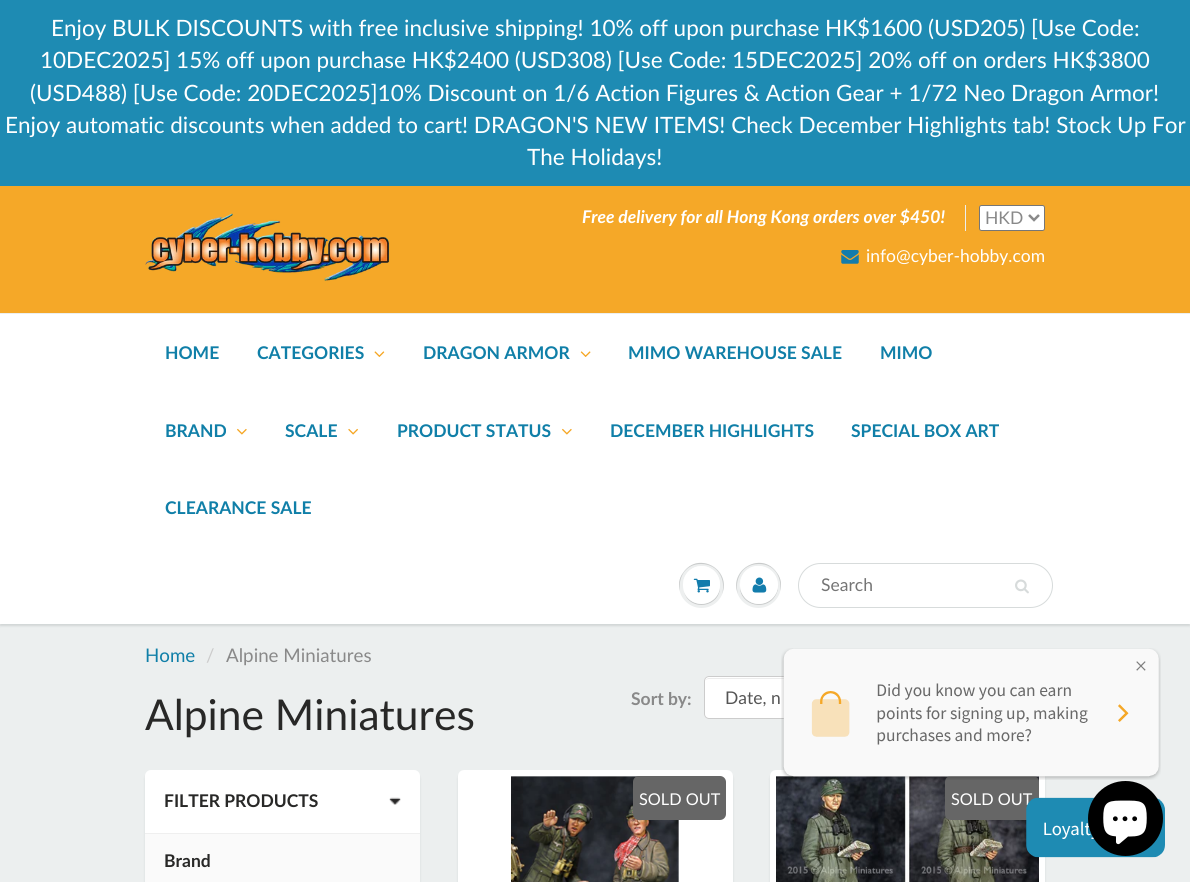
#include <cairo.h>
#include <math.h>
#include <stddef.h>

typedef struct { const char *family; double size; int italic, bold; unsigned color; } style_t;
static cairo_t *ctx;

static void ink(unsigned color) {
    cairo_set_source_rgb(ctx, (color >> 16) / 255.0, (color >> 8 & 255) / 255.0, (color & 255) / 255.0);
}

static void write(double x, double y, const char *s, const style_t *st) {
    cairo_select_font_face(ctx, st->family, st->italic ? CAIRO_FONT_SLANT_ITALIC : CAIRO_FONT_SLANT_NORMAL,
        st->bold ? CAIRO_FONT_WEIGHT_BOLD : CAIRO_FONT_WEIGHT_NORMAL);
    cairo_set_font_size(ctx, st->size);
    ink(st->color);
    cairo_move_to(ctx, x, y);
    cairo_show_text(ctx, s);
}

static void block(double x, double y, double w, double h, unsigned color) {
    ink(color);
    cairo_rectangle(ctx, x, y, w, h);
    cairo_fill(ctx);
}

static void round_path(double x, double y, double w, double h, double r) {
    cairo_new_sub_path(ctx);
    cairo_arc(ctx, x + w - r, y + h - r, r, 0, M_PI / 2);
    cairo_arc(ctx, x + r, y + h - r, r, M_PI / 2, M_PI);
    cairo_arc(ctx, x + r, y + r, r, M_PI, 1.5 * M_PI);
    cairo_arc(ctx, x + w - r, y + r, r, 1.5 * M_PI, 2 * M_PI);
    cairo_close_path(ctx);
}

static void blur_box(double x, double y, double w, double h, double r, double blur, double alpha) {
    cairo_push_group_with_content(ctx, CAIRO_CONTENT_ALPHA);
    cairo_set_operator(ctx, CAIRO_OPERATOR_SOURCE);
    for (int i = 15; i >= -15 && fmin(w, h) + blur * i / 3 > 0; i -= 2) {
        double e = blur * i / 6;
        cairo_set_source_rgba(ctx, 0, 0, 0, alpha * erfc((i - 1) / 8.5) / 2);
        round_path(x - e, y - e, w + 2 * e, h + 2 * e, fmax(0, fmin(r + e + blur * .6, fmin(w, h) / 2 + e)));
        cairo_fill(ctx);
    }
    cairo_pattern_t *soft = cairo_pop_group(ctx);
    cairo_mask(ctx, soft);
    cairo_pattern_destroy(soft);
}

static void paste(const char *path, double x, double y, double w, double h) {
    cairo_surface_t *image = cairo_image_surface_create_from_png(path);
    cairo_save(ctx);
    cairo_set_source_surface(ctx, image, x, y);
    cairo_rectangle(ctx, x, y, w, h);
    cairo_fill(ctx);
    cairo_restore(ctx);
    cairo_surface_destroy(image);
}

static const style_t s1 = {"Lato", 22.5, 0, 0, 0xffffff};
static const style_t s2 = {"Lato", 17.5, 1, 1, 0xffffff};
static const style_t s3 = {"Lato", 17.5, 0, 0, 0x898989};
static const style_t s4 = {"Lato", 17.5, 0, 0, 0xffffff};
static const style_t s5 = {"Lato", 17.5, 0, 1, 0x107fa8};
static const style_t s6 = {"Lato", 17.5, 0, 0, 0x757575};
static const style_t s7 = {"Lato", 18.75, 0, 0, 0x107fa8};
static const style_t s8 = {"Lato", 18.75, 0, 0, 0xcccccc};
static const style_t s9 = {"Lato", 18.75, 0, 0, 0x898989};
static const style_t s10 = {"Lato", 17.5, 0, 1, 0x898989};
static const style_t s11 = {"Lato", 17.5, 0, 0, 0x555555};
static const style_t s12 = {"Lato", 16.25, 0, 0, 0xffffff};
static const style_t s13 = {"Lato", 17.5, 0, 1, 0x282827};
static const style_t s14 = {"Lato", 42.5, 0, 0, 0x282827};

int main(void) {
    cairo_surface_t *surface = cairo_image_surface_create(CAIRO_FORMAT_RGB24, 1190, 882);
    ctx = cairo_create(surface);
    cairo_font_options_t *options = cairo_font_options_create();
    cairo_font_options_set_hint_metrics(options, CAIRO_HINT_METRICS_OFF);
    cairo_font_options_set_hint_style(options, CAIRO_HINT_STYLE_NONE);
    cairo_set_font_options(ctx, options);
    cairo_set_miter_limit(ctx, 4);
    ink(0x1e8bb3);
    cairo_paint(ctx);
    write(51, 36, "Enjoy BULK DISCOUNTS with free inclusive shipping! 10% off upon purchase HK$1600 (USD205) [Use Code:", &s1);
    write(40, 68, "10DEC2025] 15% off upon purchase HK$2400 (USD308) [Use Code: 15DEC2025] 20% off on orders HK$3800", &s1);
    write(30, 101, "(USD488) [Use Code: 20DEC2025]10% Discount on 1/6 Action Figures & Action Gear + 1/72 Neo Dragon Armor!", &s1);
    write(5, 133, "Enjoy automatic discounts when added to cart! DRAGON'S NEW ITEMS! Check December Highlights tab! Stock Up For", &s1);
    write(527, 165, "The Holidays!", &s1);
    block(0, 186, 1190, 127, 0xf5a828);
    paste("pic1.png", 145, 213, 245, 68);
    write(582, 223, "Free delivery for all Hong Kong orders over $450!", &s2);
    block(965, 205, 1, 26, 0xecefef);
    ink(0xffffff);
    round_path(979.5, 205.5, 65, 25, 2);
    cairo_fill_preserve(ctx);
    ink(0x767676);
    cairo_set_line_width(ctx, 1);
    cairo_stroke(ctx);
    cairo_new_path(ctx);
    cairo_move_to(ctx, 1029, 215);
    cairo_line_to(ctx, 1034, 220);
    cairo_line_to(ctx, 1039, 215);
    ink(0x898989);
    cairo_set_line_width(ctx, 2.5);
    cairo_stroke(ctx);
    write(985, 224, "HKD", &s3);
    paste("pic2.png", 841, 250, 18, 14);
    write(866, 262, "info@cyber-hobby.com", &s4);
    block(0, 624, 1190, 258, 0xecefef);
    ink(0x0b191c);
    blur_box(0, 315, 1190, 311, 0, 1, 0.12);
    block(0, 314, 1190, 310, 0xffffff);
    block(0, 313, 1190, 1, 0xecefef);
    write(165, 359, "HOME", &s5);
    write(257, 359, "CATEGORIES", &s5);
    paste("pic3.png", 374, 351, 11, 6);
    write(423, 359, "DRAGON ARMOR", &s5);
    paste("pic4.png", 580, 351, 11, 6);
    write(628, 359, "MIMO WAREHOUSE SALE", &s5);
    write(880, 359, "MIMO", &s5);
    write(165, 437, "BRAND", &s5);
    paste("pic5.png", 237, 428, 10, 7);
    write(285, 437, "SCALE", &s5);
    paste("pic6.png", 348, 428, 10, 7);
    write(397, 437, "PRODUCT STATUS", &s5);
    paste("pic5.png", 562, 428, 10, 7);
    write(610, 437, "DECEMBER HIGHLIGHTS", &s5);
    write(851, 437, "SPECIAL BOX ART", &s5);
    write(165, 514, "CLEARANCE SALE", &s5);
    ink(0xedefef);
    cairo_new_path(ctx);
    cairo_arc(ctx, 701.5, 585.5, 22.5, 0, 2 * M_PI);
    cairo_fill(ctx);
    ink(0xc9cbcb);
    cairo_new_path(ctx);
    cairo_move_to(ctx, 701, 564);
    cairo_curve_to(ctx, 719, 564, 726, 581, 722, 594);
    cairo_curve_to(ctx, 732, 570, 698, 550, 683, 573);
    cairo_curve_to(ctx, 679, 578, 678, 585, 680, 591);
    cairo_curve_to(ctx, 678, 578, 685, 564, 701, 564);
    cairo_close_path(ctx);
    cairo_fill(ctx);
    cairo_new_path(ctx);
    cairo_move_to(ctx, 684, 592);
    cairo_curve_to(ctx, 690, 612.5, 721, 607.5, 720, 586);
    cairo_curve_to(ctx, 719, 606, 691, 610.5, 684, 592);
    cairo_close_path(ctx);
    cairo_fill(ctx);
    ink(0xffffff);
    round_path(683, 566, 37, 38, 18.5);
    cairo_fill(ctx);
    cairo_new_path(ctx);
    cairo_move_to(ctx, 701, 568);
    cairo_curve_to(ctx, 715, 568, 721, 579.5, 719.5, 590);
    cairo_curve_to(ctx, 720.5, 586, 720, 581, 718.5, 577.5);
    cairo_curve_to(ctx, 710.5, 558.5, 682.5, 564.5, 683, 586);
    cairo_curve_to(ctx, 683, 577, 689, 568, 701, 568);
    cairo_close_path(ctx);
    cairo_fill(ctx);
    paste("pic7.png", 693, 578, 17, 15);
    ink(0xedefef);
    cairo_arc(ctx, 758.5, 585.5, 22.5, 0, 2 * M_PI);
    cairo_fill(ctx);
    ink(0xc9cbcb);
    cairo_new_path(ctx);
    cairo_move_to(ctx, 759, 564);
    cairo_curve_to(ctx, 775, 564, 782, 578, 780, 591);
    cairo_curve_to(ctx, 782, 585, 781, 578, 777, 573);
    cairo_curve_to(ctx, 762, 550, 728, 570, 738, 594);
    cairo_curve_to(ctx, 734, 581, 741, 564, 759, 564);
    cairo_close_path(ctx);
    cairo_fill(ctx);
    cairo_new_path(ctx);
    cairo_move_to(ctx, 740, 586);
    cairo_curve_to(ctx, 739, 606.5, 768.5, 612.5, 776.5, 593.5);
    cairo_curve_to(ctx, 778.5, 589.5, 778.5, 584.5, 777, 580);
    cairo_curve_to(ctx, 782, 598, 759.5, 612, 745.5, 598.5);
    cairo_curve_to(ctx, 742.5, 595, 740, 590.5, 740, 586);
    cairo_close_path(ctx);
    cairo_fill(ctx);
    ink(0xffffff);
    cairo_arc(ctx, 759, 585, 19, 0, 2 * M_PI);
    cairo_fill(ctx);
    cairo_new_path(ctx);
    cairo_move_to(ctx, 759, 568);
    cairo_curve_to(ctx, 775, 568, 780, 584, 775, 595);
    cairo_curve_to(ctx, 787, 575, 757, 554, 743, 574);
    cairo_curve_to(ctx, 740, 579, 739, 584, 740, 589);
    cairo_curve_to(ctx, 739, 579, 745, 568, 759, 568);
    cairo_close_path(ctx);
    cairo_fill(ctx);
    paste("pic8.png", 752, 577, 15, 16);
    round_path(798.5, 563.5, 254, 44, 22);
    ink(0xd7dbdb);
    cairo_set_line_width(ctx, 1);
    cairo_stroke(ctx);
    write(821, 591, "Search", &s6);
    paste("pic9.png", 1015, 579, 14, 15);
    write(145, 662, "Home", &s7);
    write(206, 662, "/", &s8);
    write(226, 662, "Alpine Miniatures", &s9);
    write(631, 705, "Sort by:", &s10);
    ink(0xffffff);
    round_path(704, 676, 212, 43, 5);
    cairo_fill(ctx);
    ink(0xececec);
    cairo_new_path(ctx);
    cairo_move_to(ctx, 709, 679);
    cairo_line_to(ctx, 911, 679);
    cairo_curve_to(ctx, 913, 679, 915, 680, 915, 682);
    cairo_curve_to(ctx, 915, 680, 913, 678, 911, 678);
    cairo_line_to(ctx, 709, 678);
    cairo_curve_to(ctx, 707, 678, 705, 680, 705, 682);
    cairo_curve_to(ctx, 705, 680, 707, 679, 709, 679);
    cairo_close_path(ctx);
    cairo_fill(ctx);
    round_path(704.5, 676.5, 211, 42, 4.5);
    ink(0xcccccc);
    cairo_stroke(ctx);
    write(725, 704, "Date, n", &s11);
    ink(0x0b191c);
    blur_box(458, 773, 275, 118, 6, 1, 0.1);
    ink(0xffffff);
    round_path(461, 773, 269, 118, 3);
    cairo_fill_preserve(ctx);
    cairo_set_line_width(ctx, 6);
    cairo_stroke(ctx);
    paste("pic10.png", 511, 776, 168, 106);
    ink(0x666666);
    round_path(633, 776, 93, 44, 6);
    cairo_fill(ctx);
    write(639, 805, "SOLD OUT", &s12);
    ink(0x0b191c);
    blur_box(770, 773, 275, 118, 6, 1, 0.1);
    ink(0xffffff);
    round_path(773, 773, 269, 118, 3);
    cairo_fill_preserve(ctx);
    cairo_stroke(ctx);
    paste("pic11.png", 776, 776, 263, 106);
    ink(0x666666);
    round_path(945, 776, 94, 44, 6);
    cairo_fill(ctx);
    write(951, 805, "SOLD OUT", &s12);
    ink(0x0b191c);
    blur_box(145, 773, 275, 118, 6, 1, 0.1);
    ink(0xffffff);
    round_path(145, 770, 275, 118, 6);
    cairo_fill(ctx);
    block(145, 833, 275, 1, 0xefefef);
    paste("pic12.png", 389, 797, 12, 8);
    write(164, 807, "FILTER PRODUCTS", &s13);
    block(145, 834, 275, 48, 0xfafafa);
    write(164, 867, "Brand", &s13);
    write(145, 730, "Alpine Miniatures", &s14);
    paste("pic13.png", 781, 648, 380, 132);
    paste("pic15.png", 1026, 797, 139, 61);
    ink(0x000000);
    cairo_arc(ctx, 1125.5, 818.5, 37.5, 0, 2 * M_PI);
    cairo_fill(ctx);
    paste("pic14.png", 1103, 800, 44, 45);
    cairo_surface_write_to_png(surface, "screenshot.png");
    cairo_font_options_destroy(options);
    cairo_destroy(ctx);
    cairo_surface_destroy(surface);
    return 0;
}
